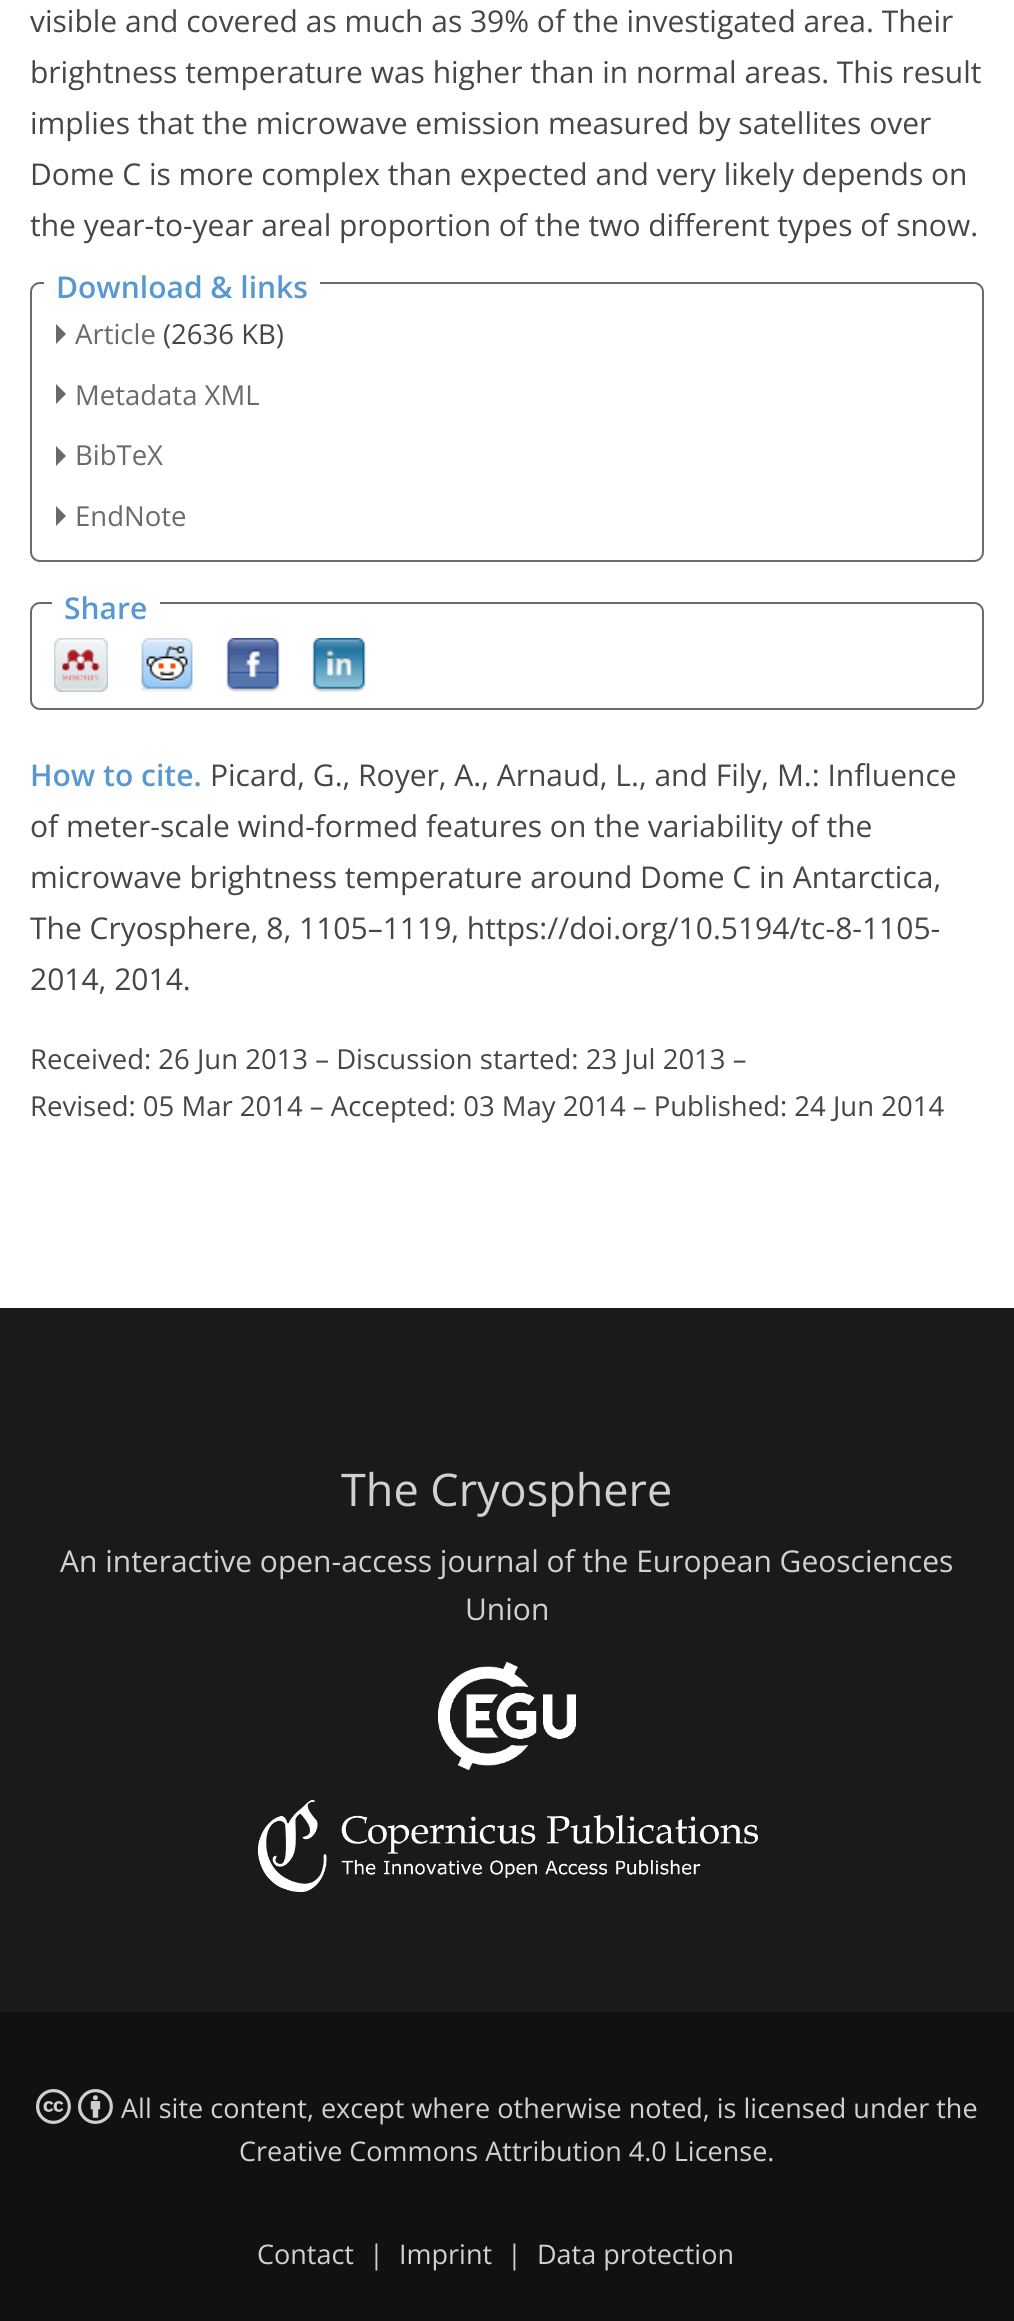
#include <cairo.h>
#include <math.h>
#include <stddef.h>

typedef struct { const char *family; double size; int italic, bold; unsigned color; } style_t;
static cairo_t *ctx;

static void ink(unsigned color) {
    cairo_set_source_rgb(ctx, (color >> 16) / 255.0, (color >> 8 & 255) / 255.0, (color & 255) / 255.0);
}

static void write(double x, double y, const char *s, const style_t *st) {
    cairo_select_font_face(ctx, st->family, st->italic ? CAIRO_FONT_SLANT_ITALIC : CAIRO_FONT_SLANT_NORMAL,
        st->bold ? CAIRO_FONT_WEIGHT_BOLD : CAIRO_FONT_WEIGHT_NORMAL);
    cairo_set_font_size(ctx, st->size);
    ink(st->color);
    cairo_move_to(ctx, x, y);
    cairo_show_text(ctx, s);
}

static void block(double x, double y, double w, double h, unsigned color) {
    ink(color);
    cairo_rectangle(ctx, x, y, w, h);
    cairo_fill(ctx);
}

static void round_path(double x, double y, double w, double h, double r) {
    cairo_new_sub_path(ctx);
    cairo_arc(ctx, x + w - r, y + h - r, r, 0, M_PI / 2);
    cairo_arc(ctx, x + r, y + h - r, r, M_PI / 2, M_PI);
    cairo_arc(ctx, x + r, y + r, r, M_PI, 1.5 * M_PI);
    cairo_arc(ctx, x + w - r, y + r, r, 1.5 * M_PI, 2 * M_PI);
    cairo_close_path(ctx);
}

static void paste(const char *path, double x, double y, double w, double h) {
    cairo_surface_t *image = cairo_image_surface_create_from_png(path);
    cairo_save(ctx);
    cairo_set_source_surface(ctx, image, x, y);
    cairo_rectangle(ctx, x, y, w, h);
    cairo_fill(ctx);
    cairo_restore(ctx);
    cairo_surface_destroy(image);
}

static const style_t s1 = {"Open Sans", 30, 0, 0, 0x464646};
static const style_t s2 = {"Open Sans SemiBold", 30, 0, 0, 0x5798d2};
static const style_t s3 = {"Open Sans", 27.5, 0, 0, 0x6a6a6a};
static const style_t s4 = {"Open Sans", 27.5, 0, 0, 0x464646};
static const style_t s5 = {"Open Sans", 45, 0, 0, 0xd1d1d1};
static const style_t s6 = {"Open Sans", 30, 0, 0, 0xd1d1d1};
static const style_t s7 = {"Open Sans", 27, 0, 0, 0xd1d1d1};

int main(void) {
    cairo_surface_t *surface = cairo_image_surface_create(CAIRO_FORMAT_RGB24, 1014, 2321);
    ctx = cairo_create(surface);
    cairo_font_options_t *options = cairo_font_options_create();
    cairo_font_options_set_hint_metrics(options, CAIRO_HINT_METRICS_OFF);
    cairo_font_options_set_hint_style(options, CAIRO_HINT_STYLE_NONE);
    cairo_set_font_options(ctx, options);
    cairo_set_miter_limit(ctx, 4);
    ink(0xffffff);
    cairo_paint(ctx);
    write(30, 32, "visible and covered as much as 39% of the investigated area. Their", &s1);
    write(30, 83, "brightness temperature was higher than in normal areas. This result", &s1);
    write(30, 134, "implies that the microwave emission measured by satellites over", &s1);
    write(30, 185, "Dome C is more complex than expected and very likely depends on", &s1);
    write(30, 236, "the year-to-year areal proportion of the two different types of snow.", &s1);
    round_path(31, 283, 952, 278, 9);
    ink(0x6a6a6a);
    cairo_stroke(ctx);
    block(44, 282, 276, 2, 0xffffff);
    write(56, 298, "Download & links", &s2);
    ink(0x6a6a6a);
    cairo_new_path(ctx);
    cairo_move_to(ctx, 56, 344);
    cairo_line_to(ctx, 56, 324);
    cairo_line_to(ctx, 66, 334);
    cairo_close_path(ctx);
    cairo_fill(ctx);
    write(75, 344, "Article", &s3);
    write(163, 344, "(2636 KB)", &s4);
    ink(0x6a6a6a);
    cairo_new_path(ctx);
    cairo_move_to(ctx, 56, 404);
    cairo_line_to(ctx, 56, 384);
    cairo_line_to(ctx, 66, 394);
    cairo_close_path(ctx);
    cairo_fill(ctx);
    write(75, 405, "Metadata XML", &s3);
    cairo_new_path(ctx);
    cairo_move_to(ctx, 56, 466);
    cairo_line_to(ctx, 56, 446);
    cairo_line_to(ctx, 66, 456);
    cairo_close_path(ctx);
    cairo_fill(ctx);
    write(75, 465, "BibTeX", &s3);
    cairo_new_path(ctx);
    cairo_move_to(ctx, 56, 526);
    cairo_line_to(ctx, 56, 506);
    cairo_line_to(ctx, 66, 516);
    cairo_close_path(ctx);
    cairo_fill(ctx);
    write(75, 526, "EndNote", &s3);
    round_path(31, 603, 952, 106, 9);
    cairo_stroke(ctx);
    block(52, 602, 108, 2, 0xffffff);
    write(64, 619, "Share", &s2);
    paste("pic1.png", 54, 638, 54, 54);
    paste("pic2.png", 141, 638, 52, 54);
    paste("pic3.png", 226, 638, 54, 54);
    paste("pic4.png", 312, 638, 54, 54);
    write(30, 786, "How to cite.", &s2);
    write(210, 786, "Picard, G., Royer, A., Arnaud, L., and Fily, M.: Influence", &s1);
    write(30, 837, "of meter-scale wind-formed features on the variability of the", &s1);
    write(30, 888, "microwave brightness temperature around Dome C in Antarctica,", &s1);
    write(30, 939, "The Cryosphere, 8, 1105–1119, https://doi.org/10.5194/tc-8-1105-", &s1);
    write(30, 990, "2014, 2014.", &s1);
    write(30, 1069, "Received: 26 Jun 2013 – Discussion started: 23 Jul 2013 –", &s4);
    write(30, 1116, "Revised: 05 Mar 2014 – Accepted: 03 May 2014 – Published: 24 Jun 2014", &s4);
    block(0, 1308, 1014, 704, 0x1a1a1a);
    write(341, 1506, "The Cryosphere", &s5);
    write(60, 1572, "An interactive open-access journal of the European Geosciences", &s6);
    write(465, 1620, "Union", &s6);
    paste("pic5.png", 438, 1662, 138, 108);
    paste("pic6.png", 258, 1800, 500, 92);
    block(0, 2012, 1014, 309, 0x111111);
    paste("pic7.png", 36, 2089, 35, 35);
    paste("pic8.png", 78, 2089, 35, 35);
    write(121, 2118, "All site content, except where otherwise noted, is licensed under the", &s7);
    write(239, 2161, "Creative Commons Attribution 4.0 License.", &s7);
    write(257, 2264, "Contact", &s7);
    write(369, 2264, "|", &s7);
    write(399, 2264, "Imprint", &s7);
    write(507, 2264, "|", &s7);
    write(537, 2264, "Data protection", &s7);
    cairo_surface_write_to_png(surface, "screenshot.png");
    cairo_font_options_destroy(options);
    cairo_destroy(ctx);
    cairo_surface_destroy(surface);
    return 0;
}
